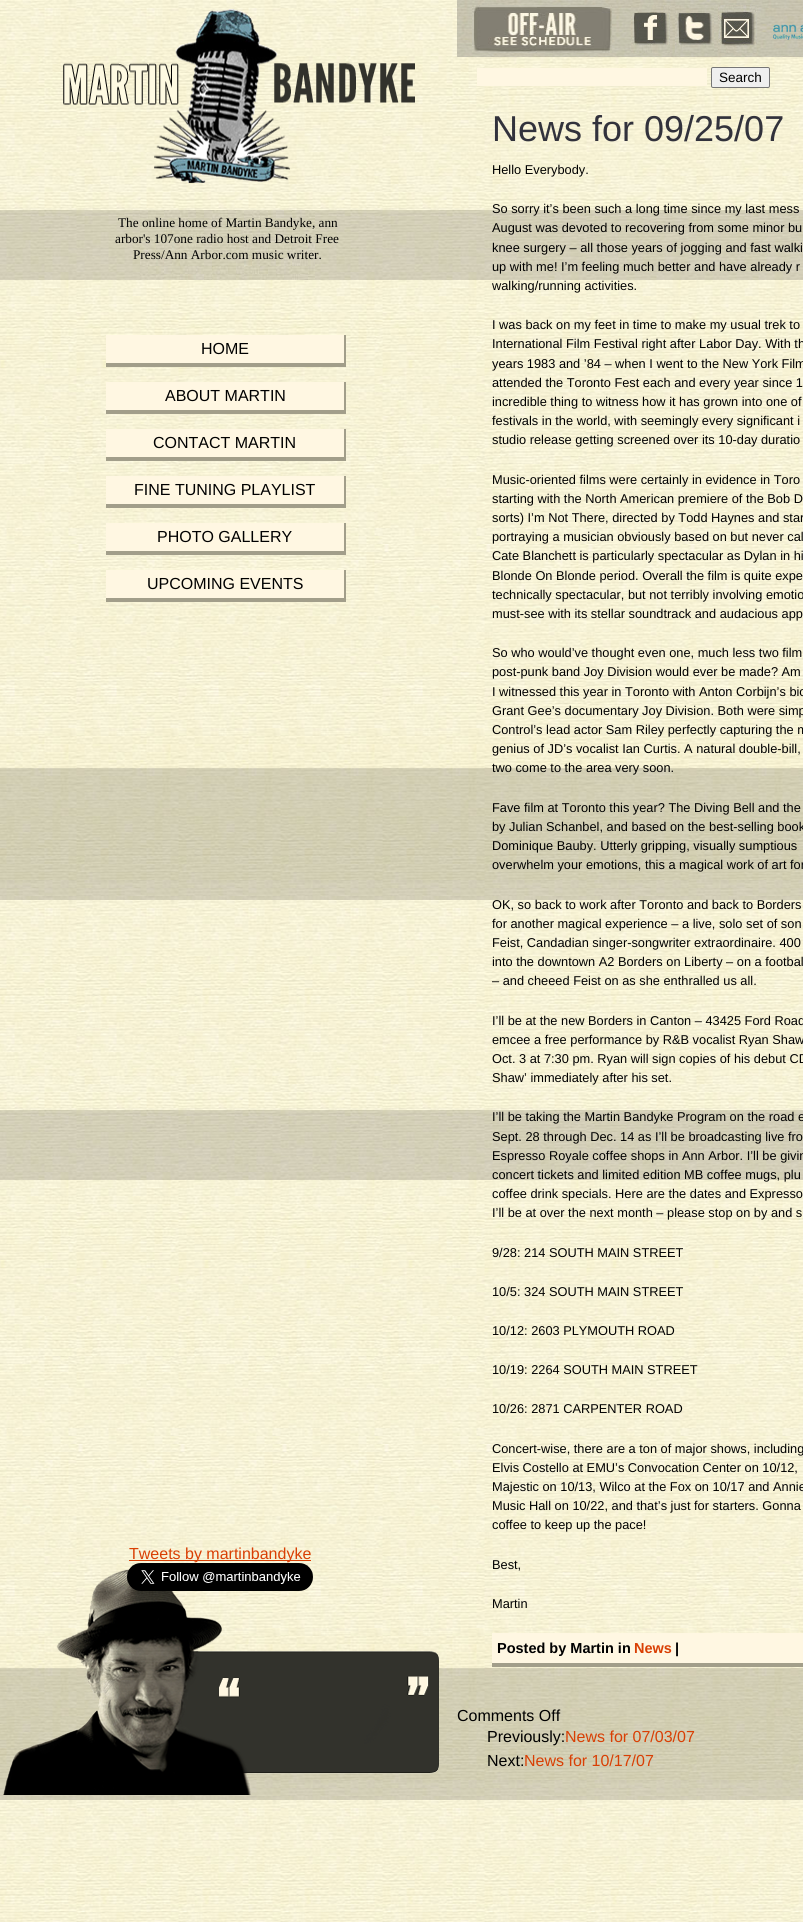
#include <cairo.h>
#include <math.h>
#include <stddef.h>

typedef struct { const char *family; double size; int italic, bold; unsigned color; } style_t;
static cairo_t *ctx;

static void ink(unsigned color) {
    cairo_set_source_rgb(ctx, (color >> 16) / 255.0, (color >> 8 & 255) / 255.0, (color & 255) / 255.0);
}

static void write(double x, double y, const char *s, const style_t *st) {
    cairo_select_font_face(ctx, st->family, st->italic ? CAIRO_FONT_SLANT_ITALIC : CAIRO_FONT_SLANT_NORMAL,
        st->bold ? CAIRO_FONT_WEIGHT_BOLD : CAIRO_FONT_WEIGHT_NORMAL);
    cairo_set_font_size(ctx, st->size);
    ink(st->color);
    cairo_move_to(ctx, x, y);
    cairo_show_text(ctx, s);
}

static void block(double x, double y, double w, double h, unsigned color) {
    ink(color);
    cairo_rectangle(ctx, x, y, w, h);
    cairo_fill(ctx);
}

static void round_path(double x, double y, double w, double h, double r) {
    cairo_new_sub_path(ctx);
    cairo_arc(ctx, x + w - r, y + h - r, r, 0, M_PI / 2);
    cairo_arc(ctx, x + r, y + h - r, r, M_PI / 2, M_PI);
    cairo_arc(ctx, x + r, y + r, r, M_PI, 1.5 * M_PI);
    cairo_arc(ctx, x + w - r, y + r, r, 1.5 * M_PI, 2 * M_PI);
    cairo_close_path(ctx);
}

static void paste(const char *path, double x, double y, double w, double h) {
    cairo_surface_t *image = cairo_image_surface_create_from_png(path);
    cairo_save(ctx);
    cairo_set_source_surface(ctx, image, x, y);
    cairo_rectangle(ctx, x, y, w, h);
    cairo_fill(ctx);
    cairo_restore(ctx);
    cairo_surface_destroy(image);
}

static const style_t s1 = {"Liberation Serif", 13.25, 0, 0, 0x000000};
static const style_t s2 = {"Liberation Sans", 16, 0, 0, 0x000000};
static const style_t s3 = {"Liberation Sans", 16, 0, 0, 0xd93f04};
static const style_t s4 = {"Liberation Sans", 13.5, 0, 0, 0x000000};
static const style_t s5 = {"Liberation Sans", 36, 0, 0, 0x32323c};
static const style_t s6 = {"Liberation Sans", 12.8, 0, 0, 0x000000};
static const style_t s7 = {"Liberation Sans", 14.5, 0, 1, 0x000000};
static const style_t s8 = {"Liberation Sans", 14.5, 0, 1, 0xd93f04};

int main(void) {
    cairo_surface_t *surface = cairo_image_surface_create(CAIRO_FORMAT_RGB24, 803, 1922);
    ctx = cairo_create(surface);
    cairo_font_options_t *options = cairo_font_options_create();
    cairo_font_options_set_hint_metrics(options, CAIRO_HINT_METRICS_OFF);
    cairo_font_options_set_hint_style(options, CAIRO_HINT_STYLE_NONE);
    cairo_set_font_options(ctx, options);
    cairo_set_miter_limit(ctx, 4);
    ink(0xffffff);
    cairo_paint(ctx);
    paste("pic1.png", 0, 0, 803, 1922);
    paste("pic2.png", 63, 9, 352, 174);
    paste("pic3.png", 140, 210, 175, 70);
    write(118, 227, "The online home of Martin Bandyke, ann", &s1);
    write(115, 243, "arbor's 107one radio host and Detroit Free", &s1);
    write(133, 259, "Press/Ann Arbor.com music writer.", &s1);
    block(106, 335, 238, 28, 0xfff7e2);
    block(344, 335, 2, 32, 0xa29e8a);
    block(106, 363, 240, 4, 0xa29e8a);
    write(201, 354, "HOME", &s2);
    block(106, 382, 238, 28, 0xfff7e2);
    block(344, 382, 2, 32, 0xa29e8a);
    block(106, 410, 240, 4, 0xa29e8a);
    write(165, 401, "ABOUT MARTIN", &s2);
    block(106, 429, 238, 28, 0xfff7e2);
    block(344, 429, 2, 32, 0xa29e8a);
    block(106, 457, 240, 4, 0xa29e8a);
    write(153, 448, "CONTACT MARTIN", &s2);
    block(106, 476, 238, 28, 0xfff7e2);
    block(344, 476, 2, 32, 0xa29e8a);
    block(106, 504, 240, 4, 0xa29e8a);
    write(134, 495, "FINE TUNING PLAYLIST", &s2);
    block(106, 523, 238, 28, 0xfff7e2);
    block(344, 523, 2, 32, 0xa29e8a);
    block(106, 551, 240, 4, 0xa29e8a);
    write(157, 542, "PHOTO GALLERY", &s2);
    block(106, 570, 238, 28, 0xfff7e2);
    block(344, 570, 2, 32, 0xa29e8a);
    block(106, 598, 240, 4, 0xa29e8a);
    write(147, 589, "UPCOMING EVENTS", &s2);
    paste("pic4.png", 3, 1569, 436, 226);
    block(129, 1560, 182, 1, 0xd93f04);
    write(129, 1559, "Tweets by martinbandyke", &s3);
    paste("pic5.png", 127, 1563, 186, 28);
    paste("pic6.png", 457, 0, 346, 57);
    paste("pic7.png", 472, 5, 140, 48);
    paste("pic8.png", 631, 5, 39, 48);
    paste("pic9.png", 675, 5, 39, 48);
    paste("pic10.png", 718, 5, 39, 48);
    paste("pic11.png", 773, 24, 30, 16);
    block(477, 68, 230, 18, 0xfff7e2);
    ink(0xefefef);
    round_path(711.5, 67.5, 58, 20, 1.5);
    cairo_fill_preserve(ctx);
    ink(0x767676);
    cairo_set_line_width(ctx, 1);
    cairo_stroke(ctx);
    write(719, 82, "Search", &s4);
    write(492, 141, "News for 09/25/07", &s5);
    write(492, 174, "Hello Everybody.", &s6);
    write(492, 213, "So sorry it’s been such a long time since my last mess", &s6);
    write(492, 232, "August was devoted to recovering from some minor bu", &s6);
    write(492, 252, "knee surgery – all those years of jogging and fast walki", &s6);
    write(492, 271, "up with me! I’m feeling much better and have already r", &s6);
    write(492, 290, "walking/running activities.", &s6);
    write(492, 329, "I was back on my feet in time to make my usual trek to", &s6);
    write(492, 348, "International Film Festival right after Labor Day. With th", &s6);
    write(492, 368, "years 1983 and ’84 – when I went to the New York Film", &s6);
    write(492, 387, "attended the Toronto Fest each and every year since 1", &s6);
    write(492, 406, "incredible thing to witness how it has grown into one of", &s6);
    write(492, 425, "festivals in the world, with seemingly every significant i", &s6);
    write(492, 444, "studio release getting screened over its 10-day duratio", &s6);
    write(492, 484, "Music-oriented films were certainly in evidence in Toro", &s6);
    write(492, 503, "starting with the North American premiere of the Bob D", &s6);
    write(492, 522, "sorts) I’m Not There, directed by Todd Haynes and star", &s6);
    write(492, 541, "portraying a musician obviously based on but never cal", &s6);
    write(492, 560, "Cate Blanchett is particularly spectacular as Dylan in hi", &s6);
    write(492, 580, "Blonde On Blonde period. Overall the film is quite expe", &s6);
    write(492, 599, "technically spectacular, but not terribly involving emotio", &s6);
    write(492, 618, "must-see with its stellar soundtrack and audacious app", &s6);
    write(492, 657, "So who would’ve thought even one, much less two film", &s6);
    write(492, 676, "post-punk band Joy Division would ever be made? Am", &s6);
    write(492, 696, "I witnessed this year in Toronto with Anton Corbijn’s bio", &s6);
    write(492, 715, "Grant Gee’s documentary Joy Division. Both were simp", &s6);
    write(492, 734, "Control’s lead actor Sam Riley perfectly capturing the m", &s6);
    write(492, 753, "genius of JD’s vocalist Ian Curtis. A natural double-bill,", &s6);
    write(492, 772, "two come to the area very soon.", &s6);
    write(492, 812, "Fave film at Toronto this year? The Diving Bell and the", &s6);
    write(492, 831, "by Julian Schanbel, and based on the best-selling book", &s6);
    write(492, 850, "Dominique Bauby. Utterly gripping, visually sumptious", &s6);
    write(492, 869, "overwhelm your emotions, this a magical work of art for", &s6);
    write(492, 909, "OK, so back to work after Toronto and back to Borders", &s6);
    write(492, 928, "for another magical experience – a live, solo set of son", &s6);
    write(492, 947, "Feist, Candadian singer-songwriter extraordinaire. 400", &s6);
    write(492, 966, "into the downtown A2 Borders on Liberty – on a footbal", &s6);
    write(492, 985, "– and cheeed Feist on as she enthralled us all.", &s6);
    write(492, 1025, "I’ll be at the new Borders in Canton – 43425 Ford Road", &s6);
    write(492, 1044, "emcee a free performance by R&B vocalist Ryan Shaw", &s6);
    write(492, 1063, "Oct. 3 at 7:30 pm. Ryan will sign copies of his debut CD", &s6);
    write(492, 1082, "Shaw’ immediately after his set.", &s6);
    write(492, 1121, "I’ll be taking the Martin Bandyke Program on the road e", &s6);
    write(492, 1141, "Sept. 28 through Dec. 14 as I’ll be broadcasting live fro", &s6);
    write(492, 1160, "Espresso Royale coffee shops in Ann Arbor. I’ll be givin", &s6);
    write(492, 1179, "concert tickets and limited edition MB coffee mugs, plu", &s6);
    write(492, 1198, "coffee drink specials. Here are the dates and Expresso", &s6);
    write(492, 1217, "I’ll be at over the next month – please stop on by and s", &s6);
    write(492, 1257, "9/28: 214 SOUTH MAIN STREET", &s6);
    write(492, 1296, "10/5: 324 SOUTH MAIN STREET", &s6);
    write(492, 1335, "10/12: 2603 PLYMOUTH ROAD", &s6);
    write(492, 1374, "10/19: 2264 SOUTH MAIN STREET", &s6);
    write(492, 1413, "10/26: 2871 CARPENTER ROAD", &s6);
    write(492, 1453, "Concert-wise, there are a ton of major shows, including", &s6);
    write(492, 1472, "Elvis Costello at EMU’s Convocation Center on 10/12,", &s6);
    write(492, 1491, "Majestic on 10/13, Wilco at the Fox on 10/17 and Annie", &s6);
    write(492, 1510, "Music Hall on 10/22, and that’s just for starters. Gonna", &s6);
    write(492, 1529, "coffee to keep up the pace!", &s6);
    write(492, 1569, "Best,", &s6);
    write(492, 1608, "Martin", &s6);
    block(492, 1633, 311, 30, 0xfff7e2);
    block(492, 1663, 311, 4, 0xa29e8a);
    write(497, 1653, "Posted by Martin in", &s7);
    write(634, 1653, "News", &s8);
    write(675, 1653, "|", &s7);
    write(457, 1721, "Comments Off", &s2);
    write(487, 1742, "Previously:", &s2);
    write(565, 1742, "News for 07/03/07", &s3);
    write(487, 1766, "Next:", &s2);
    write(524, 1766, "News for 10/17/07", &s3);
    cairo_surface_write_to_png(surface, "screenshot.png");
    cairo_font_options_destroy(options);
    cairo_destroy(ctx);
    cairo_surface_destroy(surface);
    return 0;
}
